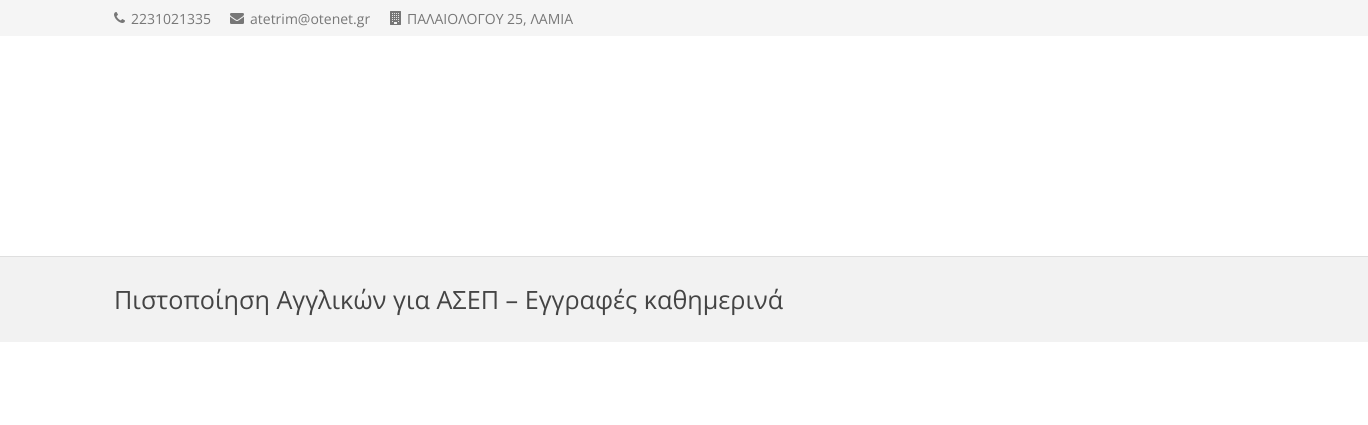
#include <cairo.h>
#include <math.h>
#include <stddef.h>

typedef struct { const char *family; double size; int italic, bold; unsigned color; } style_t;
static cairo_t *ctx;

static void ink(unsigned color) {
    cairo_set_source_rgb(ctx, (color >> 16) / 255.0, (color >> 8 & 255) / 255.0, (color & 255) / 255.0);
}

static void write(double x, double y, const char *s, const style_t *st) {
    cairo_select_font_face(ctx, st->family, st->italic ? CAIRO_FONT_SLANT_ITALIC : CAIRO_FONT_SLANT_NORMAL,
        st->bold ? CAIRO_FONT_WEIGHT_BOLD : CAIRO_FONT_WEIGHT_NORMAL);
    cairo_set_font_size(ctx, st->size);
    ink(st->color);
    cairo_move_to(ctx, x, y);
    cairo_show_text(ctx, s);
}

static void block(double x, double y, double w, double h, unsigned color) {
    ink(color);
    cairo_rectangle(ctx, x, y, w, h);
    cairo_fill(ctx);
}

static void paste(const char *path, double x, double y, double w, double h) {
    cairo_surface_t *image = cairo_image_surface_create_from_png(path);
    cairo_save(ctx);
    cairo_set_source_surface(ctx, image, x, y);
    cairo_rectangle(ctx, x, y, w, h);
    cairo_fill(ctx);
    cairo_restore(ctx);
    cairo_surface_destroy(image);
}

static const style_t s1 = {"Open Sans", 14, 0, 0, 0x777777};
static const style_t s2 = {"Open Sans", 25.2, 0, 0, 0x444444};

int main(void) {
    cairo_surface_t *surface = cairo_image_surface_create(CAIRO_FORMAT_RGB24, 1368, 425);
    ctx = cairo_create(surface);
    cairo_font_options_t *options = cairo_font_options_create();
    cairo_font_options_set_hint_metrics(options, CAIRO_HINT_METRICS_OFF);
    cairo_font_options_set_hint_style(options, CAIRO_HINT_STYLE_NONE);
    cairo_set_font_options(ctx, options);
    cairo_set_miter_limit(ctx, 4);
    ink(0xffffff);
    cairo_paint(ctx);
    block(0, 0, 1368, 36, 0xf5f5f5);
    paste("pic1.png", 114, 12, 11, 11);
    write(131, 24, "2231021335", &s1);
    paste("pic2.png", 230, 13, 14, 11);
    write(250, 24, "atetrim@otenet.gr", &s1);
    paste("pic3.png", 390, 11, 11, 14);
    write(407, 24, "ΠΑΛΑΙΟΛΟΓΟΥ 25, ΛΑΜΙΑ", &s1);
    block(0, 256, 1368, 1, 0xdfdfdf);
    block(0, 257, 1368, 85, 0xf2f2f2);
    write(114, 309, "Πιστοποίηση Αγγλικών για ΑΣΕΠ – Εγγραφές καθημερινά", &s2);
    cairo_surface_write_to_png(surface, "screenshot.png");
    cairo_font_options_destroy(options);
    cairo_destroy(ctx);
    cairo_surface_destroy(surface);
    return 0;
}
